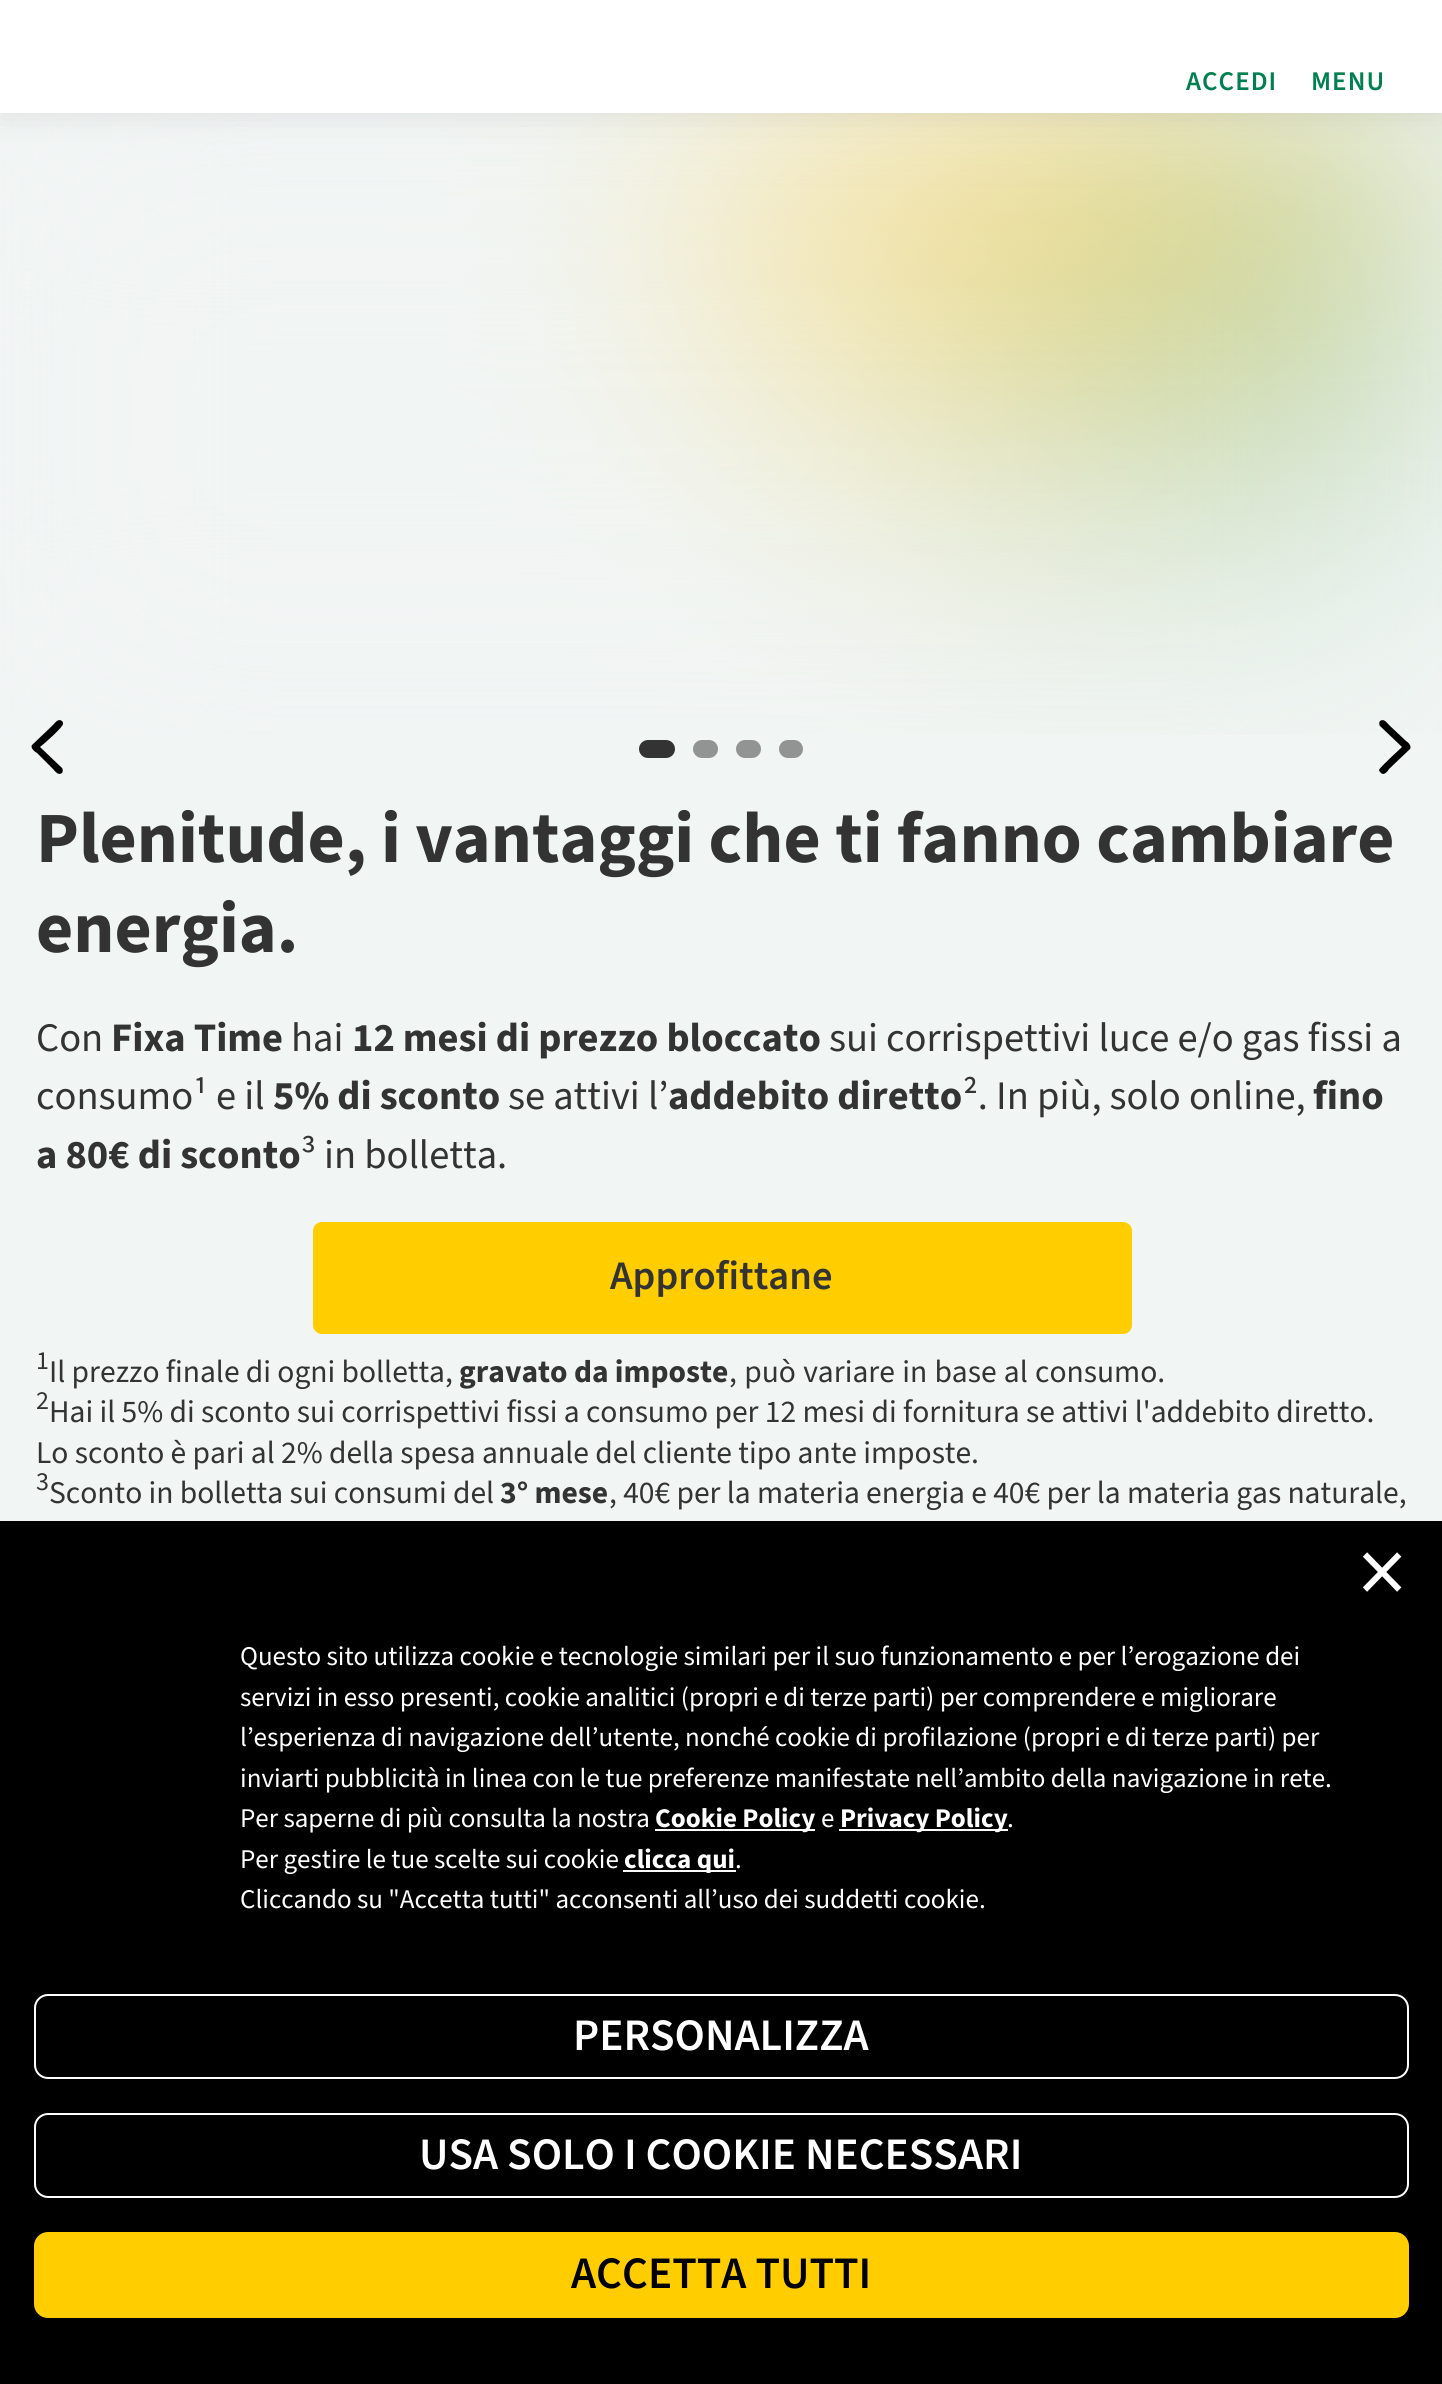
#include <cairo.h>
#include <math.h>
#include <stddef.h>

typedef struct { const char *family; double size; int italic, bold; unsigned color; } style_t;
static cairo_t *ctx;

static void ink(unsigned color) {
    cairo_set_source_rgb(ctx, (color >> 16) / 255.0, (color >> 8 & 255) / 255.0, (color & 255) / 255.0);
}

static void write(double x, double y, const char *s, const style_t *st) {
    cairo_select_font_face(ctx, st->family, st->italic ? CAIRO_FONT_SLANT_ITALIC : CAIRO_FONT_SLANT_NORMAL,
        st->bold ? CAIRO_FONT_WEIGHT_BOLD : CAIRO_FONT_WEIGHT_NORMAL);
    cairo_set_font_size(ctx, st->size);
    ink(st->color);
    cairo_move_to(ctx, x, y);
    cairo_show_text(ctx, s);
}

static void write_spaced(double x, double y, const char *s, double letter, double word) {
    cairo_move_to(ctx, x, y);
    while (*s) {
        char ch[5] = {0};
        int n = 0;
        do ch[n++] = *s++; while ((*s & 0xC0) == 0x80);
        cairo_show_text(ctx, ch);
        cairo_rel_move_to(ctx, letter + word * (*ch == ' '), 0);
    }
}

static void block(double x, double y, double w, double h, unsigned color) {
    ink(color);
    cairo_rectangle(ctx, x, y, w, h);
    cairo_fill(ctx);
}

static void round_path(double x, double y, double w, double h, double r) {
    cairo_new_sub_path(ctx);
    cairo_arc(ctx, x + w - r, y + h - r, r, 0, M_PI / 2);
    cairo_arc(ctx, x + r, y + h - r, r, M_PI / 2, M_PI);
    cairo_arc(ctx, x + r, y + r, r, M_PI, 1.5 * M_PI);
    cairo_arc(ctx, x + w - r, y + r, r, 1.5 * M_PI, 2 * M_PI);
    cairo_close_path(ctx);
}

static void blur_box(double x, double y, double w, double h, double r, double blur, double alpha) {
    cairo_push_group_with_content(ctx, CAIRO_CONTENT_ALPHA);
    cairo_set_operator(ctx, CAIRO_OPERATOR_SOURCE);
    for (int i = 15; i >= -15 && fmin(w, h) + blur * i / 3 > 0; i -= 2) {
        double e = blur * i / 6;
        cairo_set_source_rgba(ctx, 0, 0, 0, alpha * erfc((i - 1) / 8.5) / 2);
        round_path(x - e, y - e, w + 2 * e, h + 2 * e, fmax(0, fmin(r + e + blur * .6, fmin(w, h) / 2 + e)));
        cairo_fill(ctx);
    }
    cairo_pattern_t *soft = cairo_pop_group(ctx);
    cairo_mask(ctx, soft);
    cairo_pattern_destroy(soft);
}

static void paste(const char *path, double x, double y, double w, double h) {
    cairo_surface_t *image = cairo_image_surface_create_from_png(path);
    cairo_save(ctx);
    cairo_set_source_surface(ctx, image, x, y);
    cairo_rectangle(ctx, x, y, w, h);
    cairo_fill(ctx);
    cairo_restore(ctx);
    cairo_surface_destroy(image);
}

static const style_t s1 = {"Source Sans 3", 72, 0, 1, 0x333333};
static const style_t s2 = {"Source Sans 3", 40.5, 0, 0, 0x333333};
static const style_t s3 = {"Source Sans 3", 40.5, 0, 1, 0x333333};
static const style_t s4 = {"Source Sans 3 SemiBold", 40.5, 0, 0, 0x333333};
static const style_t s5 = {"Source Sans 3", 26, 0, 0, 0x333333};
static const style_t s6 = {"Source Sans 3", 31.5, 0, 0, 0x333333};
static const style_t s7 = {"Source Sans 3", 31.5, 0, 1, 0x333333};
static const style_t s8 = {"Source Sans 3", 97, 0, 0, 0xffffff};
static const style_t s9 = {"Source Sans 3", 27, 0, 0, 0xffffff};
static const style_t s10 = {"Source Sans 3", 27, 0, 1, 0xffffff};
static const style_t s11 = {"Source Sans 3 SemiBold", 45, 0, 0, 0xffffff};
static const style_t s12 = {"Source Sans 3 SemiBold", 45, 0, 0, 0x000000};

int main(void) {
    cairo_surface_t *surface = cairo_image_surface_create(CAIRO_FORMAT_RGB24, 1442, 2384);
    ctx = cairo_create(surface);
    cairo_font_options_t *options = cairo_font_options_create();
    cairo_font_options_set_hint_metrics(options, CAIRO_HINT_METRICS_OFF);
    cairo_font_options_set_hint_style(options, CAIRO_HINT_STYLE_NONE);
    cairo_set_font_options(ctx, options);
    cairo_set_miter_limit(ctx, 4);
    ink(0xf1f5f4);
    cairo_paint(ctx);
    paste("pic1.png", 0, 113, 1442, 622);
    ink(0x333333);
    blur_box(0, 0, 1442, 113, 0, 17, 0.12);
    block(0, 0, 1442, 113, 0xffffff);
    cairo_select_font_face(ctx, "Source Sans 3 SemiBold", CAIRO_FONT_SLANT_NORMAL, CAIRO_FONT_WEIGHT_NORMAL);
    cairo_set_font_size(ctx, 27);
    ink(0x008051);
    write_spaced(1186, 90, "ACCEDI", 1, 0);
    write_spaced(1311, 90, "MENU", 1, 0);
    ink(0x000000);
    cairo_new_path(ctx);
    cairo_move_to(ctx, 62, 768);
    cairo_curve_to(ctx, 63, 769, 63, 772, 62, 773);
    cairo_curve_to(ctx, 58, 776, 55, 771, 53, 769);
    cairo_line_to(ctx, 37, 753);
    cairo_curve_to(ctx, 35, 752, 30, 748, 32, 745);
    cairo_line_to(ctx, 53, 725);
    cairo_curve_to(ctx, 55, 723, 58, 718, 62, 721);
    cairo_curve_to(ctx, 63, 722, 63, 723, 63, 724);
    cairo_curve_to(ctx, 63, 727, 44, 744, 40, 747);
    cairo_close_path(ctx);
    cairo_fill(ctx);
    cairo_new_path(ctx);
    cairo_move_to(ctx, 1380, 726);
    cairo_curve_to(ctx, 1379, 725, 1379, 722, 1380, 721);
    cairo_curve_to(ctx, 1384, 718, 1387, 723, 1389, 725);
    cairo_line_to(ctx, 1406, 741);
    cairo_curve_to(ctx, 1408, 742, 1412, 746, 1410, 749);
    cairo_line_to(ctx, 1389, 769);
    cairo_curve_to(ctx, 1388, 771, 1384, 776, 1381, 773);
    cairo_curve_to(ctx, 1380, 772, 1379, 771, 1379, 770);
    cairo_curve_to(ctx, 1380, 767, 1399, 750, 1402, 747);
    cairo_close_path(ctx);
    cairo_fill(ctx);
    ink(0x333333);
    round_path(639, 740, 36, 18, 9);
    cairo_fill(ctx);
    ink(0x929494);
    round_path(693, 740, 25, 18, 9);
    cairo_fill(ctx);
    round_path(736, 740, 25, 18, 9);
    cairo_fill(ctx);
    round_path(779, 740, 24, 18, 9);
    cairo_fill(ctx);
    write(36, 862, "Plenitude, i vantaggi che ti fanno cambiare", &s1);
    write(36, 952, "energia.", &s1);
    write(36, 1051, "Con", &s2);
    write(111, 1051, "Fixa Time", &s3);
    write(291, 1051, "hai", &s2);
    write(352, 1051, "12 mesi di prezzo bloccato", &s3);
    write(829, 1051, "sui corrispettivi luce e/o gas fissi a", &s2);
    write(36, 1109, "consumo¹ e il", &s2);
    write(273, 1109, "5% di sconto", &s3);
    write(508, 1109, "se attivi l’", &s2);
    write(668, 1109, "addebito diretto", &s3);
    write(963, 1109, "². In più, solo online,", &s2);
    write(1313, 1109, "fino", &s3);
    write(36, 1168, "a 80€ di sconto", &s3);
    write(301, 1168, "³ in bolletta.", &s2);
    ink(0xffcd00);
    round_path(314, 1223, 817, 110, 8);
    cairo_fill_preserve(ctx);
    cairo_stroke(ctx);
    write(610, 1289, "Approfittane", &s4);
    write(36, 1369, "1", &s5);
    write(49, 1382, "Il prezzo finale di ogni bolletta,", &s6);
    write(459, 1382, "gravato da imposte", &s7);
    cairo_select_font_face(ctx, "Source Sans 3", CAIRO_FONT_SLANT_NORMAL, CAIRO_FONT_WEIGHT_NORMAL);
    write_spaced(729, 1382, ", può variare in base al consumo.", 0, 1);
    write(36, 1409, "2", &s5);
    write(49, 1422, "Hai il 5% di sconto sui corrispettivi fissi a consumo per 12 mesi di fornitura se attivi l'addebito diretto.", &s6);
    write(36, 1463, "Lo sconto è pari al 2% della spesa annuale del cliente tipo ante imposte.", &s6);
    write(36, 1490, "3", &s5);
    write(49, 1503, "Sconto in bolletta sui consumi del", &s6);
    write(500, 1503, "3° mese", &s7);
    write(609, 1503, ", 40€ per la materia energia e 40€ per la materia gas naturale,", &s6);
    block(0, 1521, 1442, 863, 0x000000);
    write(1358, 1604, "×", &s8);
    write(240, 1665, "Questo sito utilizza cookie e tecnologie similari per il suo funzionamento e per l’erogazione dei", &s9);
    write(240, 1706, "servizi in esso presenti, cookie analitici (propri e di terze parti) per comprendere e migliorare", &s9);
    write(240, 1746, "l’esperienza di navigazione dell’utente, nonché cookie di profilazione (propri e di terze parti) per", &s9);
    write(240, 1787, "inviarti pubblicità in linea con le tue preferenze manifestate nell’ambito della navigazione in rete.", &s9);
    write(240, 1827, "Per saperne di più consulta la nostra", &s9);
    block(655, 1829, 160, 2, 0xffffff);
    write(655, 1827, "Cookie Policy", &s10);
    write(821, 1827, "e", &s9);
    block(839, 1829, 169, 2, 0xffffff);
    write(840, 1827, "Privacy Policy", &s10);
    write(1007, 1827, ".", &s9);
    write(240, 1868, "Per gestire le tue scelte sui cookie", &s9);
    block(623, 1870, 113, 2, 0xffffff);
    write(624, 1868, "clicca qui", &s10);
    write(735, 1868, ".", &s9);
    write(240, 1908, "Cliccando su \"Accetta tutti\" acconsenti all’uso dei suddetti cookie.", &s9);
    round_path(35, 1995, 1373, 83, 13);
    cairo_stroke(ctx);
    write(573, 2050, "PERSONALIZZA", &s11);
    round_path(35, 2114, 1373, 83, 13);
    cairo_stroke(ctx);
    write(419, 2169, "USA SOLO I COOKIE NECESSARI", &s11);
    ink(0xffcd00);
    round_path(35, 2233, 1373, 84, 13);
    cairo_fill_preserve(ctx);
    cairo_stroke(ctx);
    write(571, 2288, "ACCETTA TUTTI", &s12);
    cairo_surface_write_to_png(surface, "screenshot.png");
    cairo_font_options_destroy(options);
    cairo_destroy(ctx);
    cairo_surface_destroy(surface);
    return 0;
}
